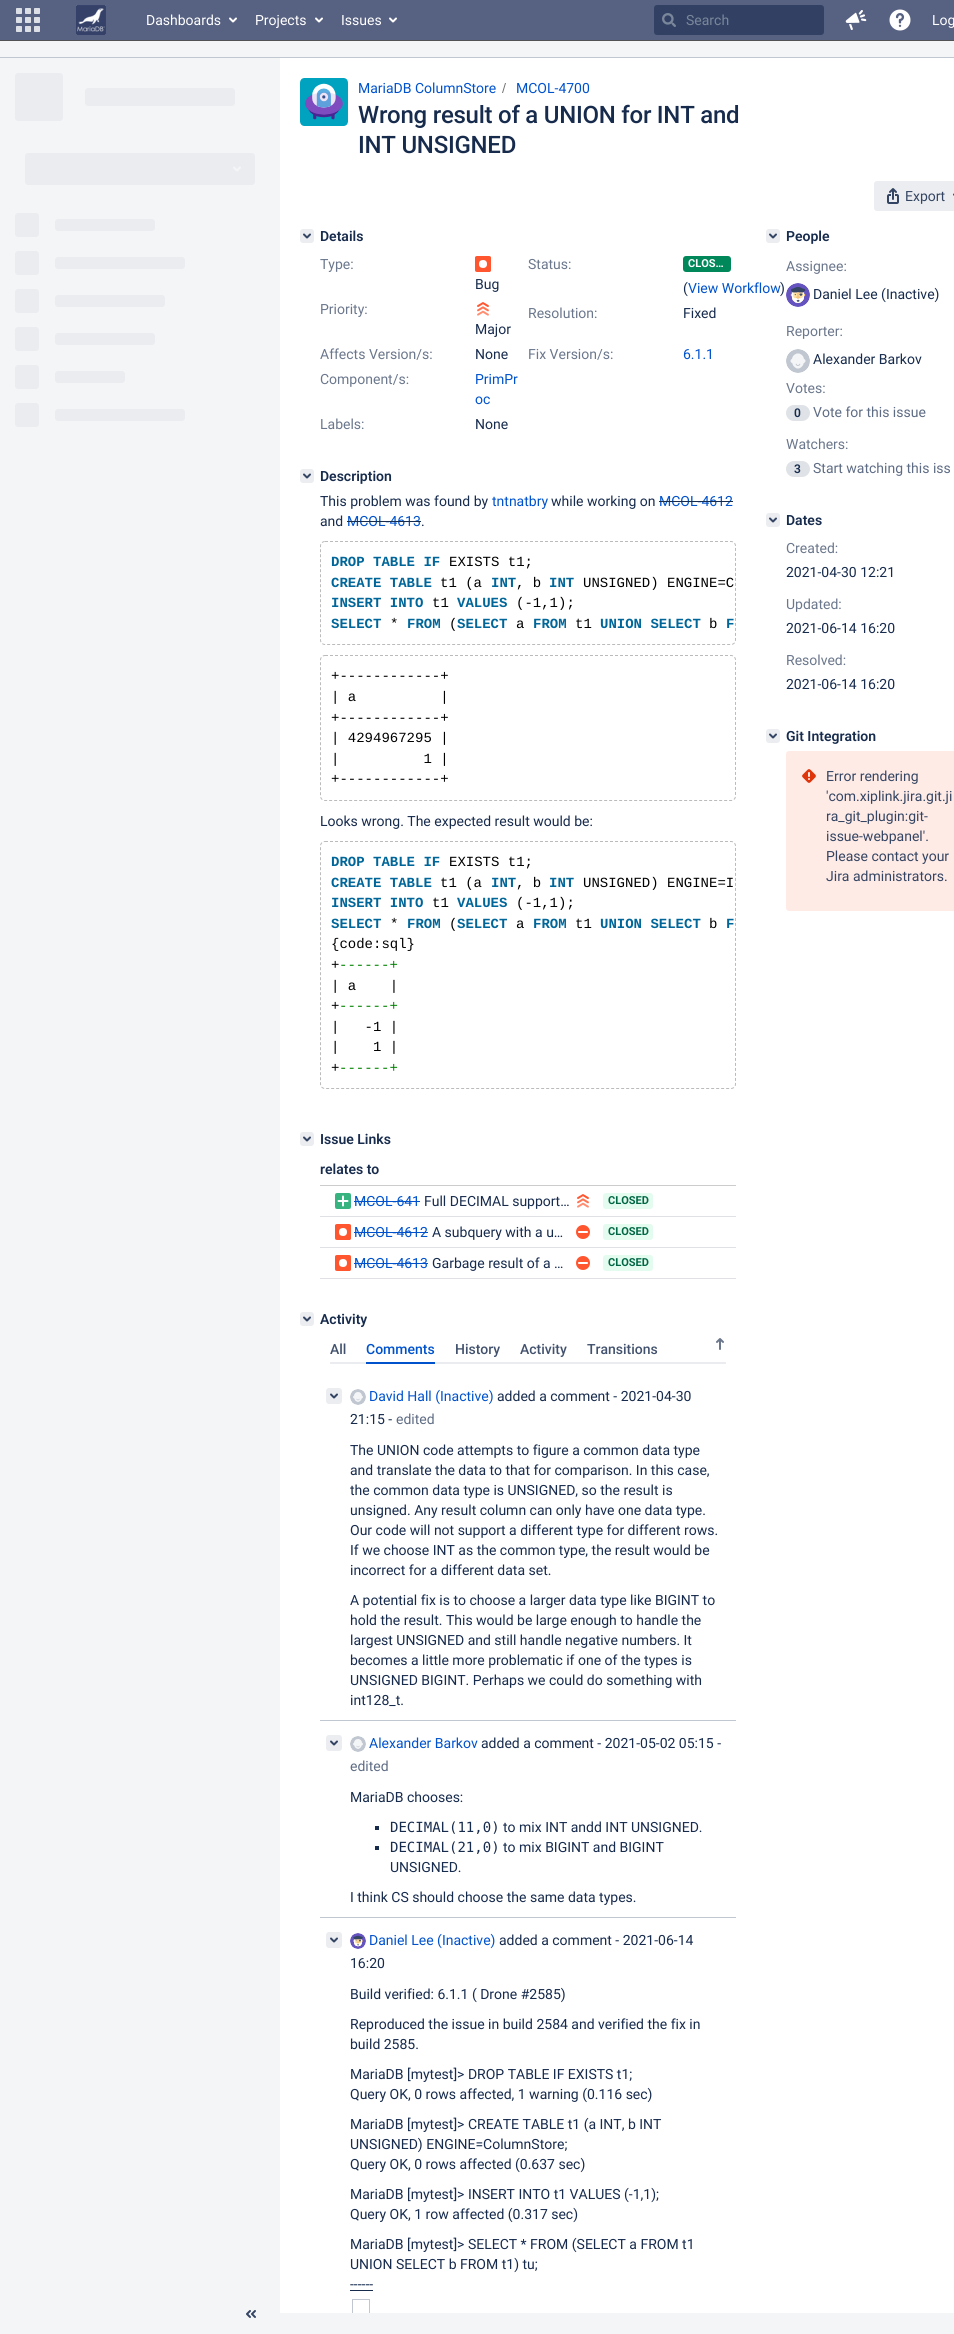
#include <cairo.h>
#include <math.h>
#include <stddef.h>

typedef struct { const char *family; double size; int italic, bold; unsigned color; } style_t;
static cairo_t *ctx;

static void ink(unsigned color) {
    cairo_set_source_rgb(ctx, (color >> 16) / 255.0, (color >> 8 & 255) / 255.0, (color & 255) / 255.0);
}

static void write(double x, double y, const char *s, const style_t *st) {
    cairo_select_font_face(ctx, st->family, st->italic ? CAIRO_FONT_SLANT_ITALIC : CAIRO_FONT_SLANT_NORMAL,
        st->bold ? CAIRO_FONT_WEIGHT_BOLD : CAIRO_FONT_WEIGHT_NORMAL);
    cairo_set_font_size(ctx, st->size);
    ink(st->color);
    cairo_move_to(ctx, x, y);
    cairo_show_text(ctx, s);
}

static void write_spaced(double x, double y, const char *s, double letter, double word) {
    cairo_move_to(ctx, x, y);
    while (*s) {
        char ch[5] = {0};
        int n = 0;
        do ch[n++] = *s++; while ((*s & 0xC0) == 0x80);
        cairo_show_text(ctx, ch);
        cairo_rel_move_to(ctx, letter + word * (*ch == ' '), 0);
    }
}

static void block(double x, double y, double w, double h, unsigned color) {
    ink(color);
    cairo_rectangle(ctx, x, y, w, h);
    cairo_fill(ctx);
}

static void round_path(double x, double y, double w, double h, double r) {
    cairo_new_sub_path(ctx);
    cairo_arc(ctx, x + w - r, y + h - r, r, 0, M_PI / 2);
    cairo_arc(ctx, x + r, y + h - r, r, M_PI / 2, M_PI);
    cairo_arc(ctx, x + r, y + r, r, M_PI, 1.5 * M_PI);
    cairo_arc(ctx, x + w - r, y + r, r, 1.5 * M_PI, 2 * M_PI);
    cairo_close_path(ctx);
}

static void paste(const char *path, double x, double y, double w, double h) {
    cairo_surface_t *image = cairo_image_surface_create_from_png(path);
    cairo_save(ctx);
    cairo_set_source_surface(ctx, image, x, y);
    cairo_rectangle(ctx, x, y, w, h);
    cairo_fill(ctx);
    cairo_restore(ctx);
    cairo_surface_destroy(image);
}

static const style_t s1 = {"Roboto", 14, 0, 0, 0xffffff};
static const style_t s2 = {"Roboto", 14, 0, 0, 0x7a869a};
static const style_t s3 = {"Roboto", 14, 0, 0, 0x0052cc};
static const style_t s4 = {"Roboto", 14, 0, 0, 0x344563};
static const style_t s5 = {"Roboto SemiBold", 14, 0, 0, 0x172b4d};
static const style_t s6 = {"Roboto", 14, 0, 0, 0x6b778c};
static const style_t s7 = {"Roboto", 14, 0, 0, 0x172b4d};
static const style_t s8 = {"Roboto", 11, 0, 1, 0xffffff};
static const style_t s9 = {"Liberation Mono", 14, 0, 1, 0x006699};
static const style_t s10 = {"Liberation Mono", 14, 0, 0, 0x000000};
static const style_t s11 = {"Liberation Mono", 14, 0, 0, 0x008200};
static const style_t s12 = {"Roboto", 11, 0, 1, 0x006644};
static const style_t s13 = {"Roboto Medium", 14, 0, 0, 0x42526e};
static const style_t s14 = {"Roboto Medium", 14, 0, 0, 0x0052cc};
static const style_t s15 = {"Roboto", 14, 0, 0, 0x5e6c84};
static const style_t s16 = {"DejaVu Sans Mono", 14, 0, 0, 0x172b4d};
static const style_t s17 = {"Roboto SemiBold", 12, 0, 0, 0x172b4d};

int main(void) {
    cairo_surface_t *surface = cairo_image_surface_create(CAIRO_FORMAT_RGB24, 954, 2334);
    ctx = cairo_create(surface);
    cairo_font_options_t *options = cairo_font_options_create();
    cairo_font_options_set_hint_metrics(options, CAIRO_HINT_METRICS_OFF);
    cairo_font_options_set_hint_style(options, CAIRO_HINT_STYLE_NONE);
    cairo_set_font_options(ctx, options);
    cairo_set_miter_limit(ctx, 4);
    ink(0xf4f5f7);
    cairo_paint(ctx);
    block(0, 0, 954, 40, 0x576181);
    block(0, 40, 954, 1, 0x525254);
    paste("pic1.png", 16, 8, 24, 24);
    paste("pic2.png", 76, 5, 30, 30);
    write(146, 25, "Dashboards", &s1);
    paste("pic3.png", 229, 17, 8, 6);
    write(255, 25, "Projects", &s1);
    paste("pic3.png", 315, 17, 8, 6);
    write(341, 25, "Issues", &s1);
    paste("pic3.png", 389, 17, 8, 6);
    ink(0x324163);
    round_path(654, 5, 170, 30, 3);
    cairo_fill(ctx);
    paste("pic4.png", 662, 13, 14, 14);
    write(686, 25, "Search", &s2);
    paste("pic5.png", 845, 10, 22, 20);
    paste("pic6.png", 889, 9, 22, 22);
    write(932, 25, "Log", &s1);
    block(0, 57, 954, 1, 0xc1c7d0);
    paste("pic7.png", 15, 73, 240, 354);
    paste("pic8.png", 246, 2310, 10, 8);
    block(280, 58, 674, 2255, 0xffffff);
    paste("pic9.png", 300, 78, 48, 48);
    write(358, 93, "MariaDB ColumnStore", &s3);
    ink(0x707070);
    cairo_new_path(ctx);
    cairo_move_to(ctx, 503, 93);
    cairo_line_to(ctx, 506, 83);
    cairo_line_to(ctx, 505, 83);
    cairo_line_to(ctx, 502, 93);
    cairo_close_path(ctx);
    cairo_fill(ctx);
    write(516, 93, "MCOL-4700", &s3);
    cairo_select_font_face(ctx, "Roboto Medium", CAIRO_FONT_SLANT_NORMAL, CAIRO_FONT_WEIGHT_NORMAL);
    cairo_set_font_size(ctx, 24);
    ink(0x172b4d);
    write_spaced(358, 123, "Wrong result of a UNION for INT and", -0.25, 0);
    write_spaced(358, 153, "INT UNSIGNED", -0.25, 0);
    ink(0xebedf0);
    round_path(874, 181, 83, 30, 3);
    cairo_fill(ctx);
    paste("pic10.png", 887, 188, 12, 16);
    write(905, 201, "Export", &s4);
    paste("pic11.png", 953, 193, 1, 3);
    ink(0xebedf0);
    round_path(300, 229, 14, 14, 3);
    cairo_fill(ctx);
    paste("pic12.png", 303, 233, 8, 6);
    write(320, 241, "Details", &s5);
    write(320, 269, "Type:", &s6);
    paste("pic13.png", 475, 256, 16, 16);
    write(475, 289, "Bug", &s7);
    write(528, 269, "Status:", &s6);
    ink(0x00875a);
    round_path(683, 256, 48, 16, 3);
    cairo_fill(ctx);
    write(688, 267, "CLOS…", &s8);
    write(683, 293, "(", &s7);
    write(688, 293, "View Workflow", &s3);
    write(780, 293, ")", &s7);
    write(320, 314, "Priority:", &s6);
    paste("pic14.png", 477, 302, 12, 14);
    write(475, 334, "Major", &s7);
    write(528, 318, "Resolution:", &s6);
    write(683, 318, "Fixed", &s7);
    write(320, 359, "Affects Version/s:", &s6);
    write(475, 359, "None", &s7);
    write(528, 359, "Fix Version/s:", &s6);
    write(683, 359, "6.1.1", &s3);
    write(320, 384, "Component/s:", &s6);
    write(475, 384, "PrimPr", &s3);
    write(475, 404, "oc", &s3);
    write(320, 429, "Labels:", &s6);
    write(475, 429, "None", &s7);
    ink(0xebedf0);
    round_path(300, 469, 14, 14, 3);
    cairo_fill(ctx);
    paste("pic12.png", 303, 473, 8, 6);
    write(320, 481, "Description", &s5);
    write(320, 506, "This problem was found by", &s7);
    write(492, 506, "tntnatbry", &s3);
    write(551, 506, "while working on", &s7);
    write(659, 506, "MCOL-4612", &s3);
    block(659, 501, 74, 1, 0x172b4d);
    write(320, 526, "and", &s7);
    write(347, 526, "MCOL-4613", &s3);
    block(347, 521, 74, 1, 0x172b4d);
    write(421, 526, ".", &s7);
    cairo_new_path(ctx);
    cairo_move_to(ctx, 325, 541.5);
    cairo_line_to(ctx, 731, 541.5);
    cairo_curve_to(ctx, 733.5, 541.5, 735.5, 543.5, 735.5, 546);
    cairo_line_to(ctx, 735.5, 640);
    cairo_curve_to(ctx, 735.5, 642.5, 733.5, 644.5, 731, 644.5);
    cairo_line_to(ctx, 325, 644.5);
    cairo_curve_to(ctx, 322.5, 644.5, 320.5, 642.5, 320.5, 640);
    cairo_line_to(ctx, 320.5, 546);
    cairo_curve_to(ctx, 320.5, 543.5, 322.5, 541.5, 325, 541.5);
    cairo_close_path(ctx);
    ink(0xbbbbbb);
    cairo_set_line_width(ctx, 1);
    cairo_set_dash(ctx, (double[]){3, 2}, 2, 0);
    cairo_stroke(ctx);
    write(331, 566, "DROP TABLE IF", &s9);
    write(449, 566, "EXISTS t1;", &s10);
    write(331, 587, "CREATE TABLE", &s9);
    write(440, 587, "t1 (a", &s10);
    write(491, 587, "INT", &s9);
    write(516, 587, ", b", &s10);
    write(549, 587, "INT", &s9);
    write(583, 587, "UNSIGNED) ENGINE=C", &s10);
    write(331, 607, "INSERT INTO", &s9);
    write(432, 607, "t1", &s10);
    write(457, 607, "VALUES", &s9);
    write(516, 607, "(-1,1);", &s10);
    write(331, 628, "SELECT", &s9);
    write(390, 628, "*", &s10);
    write(407, 628, "FROM", &s9);
    write(449, 628, "(", &s10);
    write(457, 628, "SELECT", &s9);
    write(516, 628, "a", &s10);
    write(533, 628, "FROM", &s9);
    write(575, 628, "t1", &s10);
    write(600, 628, "UNION SELECT", &s9);
    write(709, 628, "b", &s10);
    write(726, 628, "F", &s9);
    cairo_new_path(ctx);
    cairo_move_to(ctx, 325, 655.5);
    cairo_line_to(ctx, 731, 655.5);
    cairo_curve_to(ctx, 733.5, 655.5, 735.5, 657.5, 735.5, 660);
    cairo_line_to(ctx, 735.5, 796);
    cairo_curve_to(ctx, 735.5, 798.5, 733.5, 800.5, 731, 800.5);
    cairo_line_to(ctx, 325, 800.5);
    cairo_curve_to(ctx, 322.5, 800.5, 320.5, 798.5, 320.5, 796);
    cairo_line_to(ctx, 320.5, 660);
    cairo_curve_to(ctx, 320.5, 657.5, 322.5, 655.5, 325, 655.5);
    cairo_close_path(ctx);
    ink(0xbbbbbb);
    cairo_stroke(ctx);
    write(331, 680, "+------------+", &s10);
    write(331, 701, "| a          |", &s10);
    write(331, 722, "+------------+", &s10);
    write(331, 742, "| 4294967295 |", &s10);
    write(331, 763, "|          1 |", &s10);
    write(331, 783, "+------------+", &s10);
    write(320, 826, "Looks wrong. The expected result would be:", &s7);
    cairo_new_path(ctx);
    cairo_move_to(ctx, 325, 841.5);
    cairo_line_to(ctx, 731, 841.5);
    cairo_curve_to(ctx, 733.5, 841.5, 735.5, 843.5, 735.5, 846);
    cairo_line_to(ctx, 735.5, 1084);
    cairo_curve_to(ctx, 735.5, 1086.5, 733.5, 1088.5, 731, 1088.5);
    cairo_line_to(ctx, 325, 1088.5);
    cairo_curve_to(ctx, 322.5, 1088.5, 320.5, 1086.5, 320.5, 1084);
    cairo_line_to(ctx, 320.5, 846);
    cairo_curve_to(ctx, 320.5, 843.5, 322.5, 841.5, 325, 841.5);
    cairo_close_path(ctx);
    ink(0xbbbbbb);
    cairo_stroke(ctx);
    write(331, 866, "DROP TABLE IF", &s9);
    write(449, 866, "EXISTS t1;", &s10);
    write(331, 887, "CREATE TABLE", &s9);
    write(440, 887, "t1 (a", &s10);
    write(491, 887, "INT", &s9);
    write(516, 887, ", b", &s10);
    write(549, 887, "INT", &s9);
    write(583, 887, "UNSIGNED) ENGINE=I", &s10);
    write(331, 907, "INSERT INTO", &s9);
    write(432, 907, "t1", &s10);
    write(457, 907, "VALUES", &s9);
    write(516, 907, "(-1,1);", &s10);
    write(331, 928, "SELECT", &s9);
    write(390, 928, "*", &s10);
    write(407, 928, "FROM", &s9);
    write(449, 928, "(", &s10);
    write(457, 928, "SELECT", &s9);
    write(516, 928, "a", &s10);
    write(533, 928, "FROM", &s9);
    write(575, 928, "t1", &s10);
    write(600, 928, "UNION SELECT", &s9);
    write(709, 928, "b", &s10);
    write(726, 928, "F", &s9);
    write(331, 948, "{code:sql}", &s10);
    write(331, 969, "+", &s10);
    write(339, 969, "------+", &s11);
    write(331, 990, "| a    |", &s10);
    write(331, 1010, "+", &s10);
    write(339, 1010, "------+", &s11);
    write(331, 1031, "|   -1 |", &s10);
    write(331, 1051, "|    1 |", &s10);
    write(331, 1072, "+", &s10);
    write(339, 1072, "------+", &s11);
    ink(0xebedf0);
    round_path(300, 1132, 14, 14, 3);
    cairo_fill(ctx);
    paste("pic12.png", 303, 1136, 8, 6);
    write(320, 1144, "Issue Links", &s5);
    write(320, 1174, "relates to", &s5);
    block(320, 1185, 416, 1, 0xcccccc);
    block(320, 1216, 416, 1, 0xdfe1e5);
    paste("pic15.png", 335, 1193, 16, 16);
    write(354, 1206, "MCOL-641", &s3);
    block(354, 1201, 66, 1, 0x0052cc);
    write(424, 1206, "Full DECIMAL support…", &s7);
    paste("pic14.png", 577, 1194, 12, 14);
    ink(0xe3fcef);
    round_path(603, 1193, 50, 16, 3);
    cairo_fill(ctx);
    write(608, 1204, "CLOSED", &s12);
    block(320, 1247, 416, 1, 0xdfe1e5);
    paste("pic13.png", 335, 1224, 16, 16);
    write(354, 1237, "MCOL-4612", &s3);
    block(354, 1232, 74, 1, 0x0052cc);
    write(432, 1237, "A subquery with a u…", &s7);
    paste("pic16.png", 576, 1225, 14, 14);
    ink(0xe3fcef);
    round_path(603, 1224, 50, 16, 3);
    cairo_fill(ctx);
    write(608, 1235, "CLOSED", &s12);
    block(320, 1278, 416, 1, 0xdfe1e5);
    paste("pic13.png", 335, 1255, 16, 16);
    write(354, 1268, "MCOL-4613", &s3);
    block(354, 1263, 74, 1, 0x0052cc);
    write(432, 1268, "Garbage result of a …", &s7);
    paste("pic16.png", 576, 1256, 14, 14);
    ink(0xe3fcef);
    round_path(603, 1255, 50, 16, 3);
    cairo_fill(ctx);
    write(608, 1266, "CLOSED", &s12);
    ink(0xebedf0);
    round_path(300, 1312, 14, 14, 3);
    cairo_fill(ctx);
    paste("pic12.png", 303, 1316, 8, 6);
    write(320, 1324, "Activity", &s5);
    write(330, 1354, "All", &s13);
    write(366, 1354, "Comments", &s14);
    block(330, 1362, 396, 2, 0xebecf0);
    block(366, 1362, 69, 2, 0x0052cc);
    write(455, 1354, "History", &s13);
    write(520, 1354, "Activity", &s13);
    write(587, 1354, "Transitions", &s13);
    paste("pic17.png", 716, 1338, 8, 12);
    block(320, 1720, 416, 1, 0xc1c7d0);
    ink(0xebedf0);
    round_path(326, 1388, 16, 16, 3);
    cairo_fill(ctx);
    paste("pic18.png", 330, 1393, 8, 6);
    paste("pic19.png", 350, 1389, 16, 16);
    write(369, 1401, "David Hall (Inactive)", &s3);
    write(497, 1401, "added a comment - 2021-04-30", &s7);
    write(350, 1424, "21:15 -", &s7);
    write(396, 1424, "edited", &s15);
    write(350, 1455, "The UNION code attempts to figure a common data type", &s7);
    write(350, 1475, "and translate the data to that for comparison. In this case,", &s7);
    write(350, 1495, "the common data type is UNSIGNED, so the result is", &s7);
    write(350, 1515, "unsigned. Any result column can only have one data type.", &s7);
    write(350, 1535, "Our code will not support a different type for different rows.", &s7);
    write(350, 1555, "If we choose INT as the common type, the result would be", &s7);
    write(350, 1575, "incorrect for a different data set.", &s7);
    write(350, 1605, "A potential fix is to choose a larger data type like BIGINT to", &s7);
    write(350, 1625, "hold the result. This would be large enough to handle the", &s7);
    write(350, 1645, "largest UNSIGNED and still handle negative numbers. It", &s7);
    write(350, 1665, "becomes a little more problematic if one of the types is", &s7);
    write(350, 1685, "UNSIGNED BIGINT. Perhaps we could do something with", &s7);
    write(350, 1705, "int128_t.", &s7);
    block(320, 1917, 416, 1, 0xc1c7d0);
    ink(0xebedf0);
    round_path(326, 1735, 16, 16, 3);
    cairo_fill(ctx);
    paste("pic18.png", 330, 1740, 8, 6);
    paste("pic19.png", 350, 1736, 16, 16);
    write(369, 1748, "Alexander Barkov", &s3);
    write(481, 1748, "added a comment - 2021-05-02 05:15 -", &s7);
    write(350, 1771, "edited", &s15);
    write(350, 1802, "MariaDB chooses:", &s7);
    block(375, 1826, 4, 4, 0x172b4d);
    write(390, 1832, "DECIMAL(11,0)", &s16);
    write(503, 1832, "to mix INT andd INT UNSIGNED.", &s7);
    block(375, 1846, 4, 4, 0x172b4d);
    write(390, 1852, "DECIMAL(21,0)", &s16);
    write(503, 1852, "to mix BIGINT and BIGINT", &s7);
    write(390, 1872, "UNSIGNED.", &s7);
    write(350, 1902, "I think CS should choose the same data types.", &s7);
    ink(0xebedf0);
    round_path(326, 1932, 16, 16, 3);
    cairo_fill(ctx);
    paste("pic18.png", 330, 1937, 8, 6);
    paste("pic20.png", 350, 1933, 16, 16);
    write(369, 1945, "Daniel Lee (Inactive)", &s3);
    write(499, 1945, "added a comment - 2021-06-14", &s7);
    write(350, 1968, "16:20", &s7);
    write(350, 1999, "Build verified: 6.1.1 ( Drone #2585)", &s7);
    write(350, 2029, "Reproduced the issue in build 2584 and verified the fix in", &s7);
    write(350, 2049, "build 2585.", &s7);
    write(350, 2079, "MariaDB [mytest]> DROP TABLE IF EXISTS t1;", &s7);
    write(350, 2099, "Query OK, 0 rows affected, 1 warning (0.116 sec)", &s7);
    write(350, 2129, "MariaDB [mytest]> CREATE TABLE t1 (a INT, b INT", &s7);
    write(350, 2149, "UNSIGNED) ENGINE=ColumnStore;", &s7);
    write(350, 2169, "Query OK, 0 rows affected (0.637 sec)", &s7);
    write(350, 2199, "MariaDB [mytest]> INSERT INTO t1 VALUES (-1,1);", &s7);
    write(350, 2219, "Query OK, 1 row affected (0.317 sec)", &s7);
    write(350, 2249, "MariaDB [mytest]> SELECT * FROM (SELECT a FROM t1", &s7);
    write(350, 2269, "UNION SELECT b FROM t1) tu;", &s7);
    write(350, 2289, "------", &s7);
    block(350, 2290, 23, 1, 0x172b4d);
    block(352, 2299, 18, 1, 0xc1c7d0);
    block(369, 2299, 1, 14, 0xc1c7d0);
    block(352, 2299, 1, 14, 0xc1c7d0);
    ink(0xebedf0);
    round_path(766, 229, 14, 14, 3);
    cairo_fill(ctx);
    paste("pic12.png", 769, 233, 8, 6);
    write(786, 241, "People", &s5);
    write(786, 271, "Assignee:", &s6);
    paste("pic21.png", 786, 283, 24, 24);
    write(813, 299, "Daniel Lee (Inactive)", &s7);
    write(786, 336, "Reporter:", &s6);
    paste("pic22.png", 786, 349, 24, 24);
    write(813, 364, "Alexander Barkov", &s7);
    write(786, 393, "Votes:", &s6);
    ink(0xdfe2e6);
    round_path(786, 405, 24, 16, 8);
    cairo_fill(ctx);
    write(794, 417, "0", &s17);
    write(813, 417, "Vote for this issue", &s15);
    write(786, 449, "Watchers:", &s6);
    ink(0xdfe2e6);
    round_path(786, 461, 24, 16, 8);
    cairo_fill(ctx);
    write(794, 473, "3", &s17);
    write(813, 473, "Start watching this iss", &s15);
    ink(0xebedf0);
    round_path(766, 513, 14, 14, 3);
    cairo_fill(ctx);
    paste("pic12.png", 769, 517, 8, 6);
    write(786, 525, "Dates", &s5);
    write(786, 553, "Created:", &s6);
    write(786, 577, "2021-04-30 12:21", &s7);
    write(786, 609, "Updated:", &s6);
    write(786, 633, "2021-06-14 16:20", &s7);
    write(786, 665, "Resolved:", &s6);
    write(786, 689, "2021-06-14 16:20", &s7);
    ink(0xebedf0);
    round_path(766, 729, 14, 14, 3);
    cairo_fill(ctx);
    paste("pic12.png", 769, 733, 8, 6);
    write(786, 741, "Git Integration", &s5);
    ink(0xffebe6);
    round_path(786, 751, 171, 160, 3);
    cairo_fill(ctx);
    paste("pic23.png", 802, 769, 14, 14);
    write(826, 781, "Error rendering", &s4);
    write(826, 801, "'com.xiplink.jira.git.ji", &s4);
    write(826, 821, "ra_git_plugin:git-", &s4);
    write(826, 841, "issue-webpanel'.", &s4);
    write(826, 861, "Please contact your", &s4);
    write(826, 881, "Jira administrators.", &s4);
    cairo_surface_write_to_png(surface, "screenshot.png");
    cairo_font_options_destroy(options);
    cairo_destroy(ctx);
    cairo_surface_destroy(surface);
    return 0;
}
